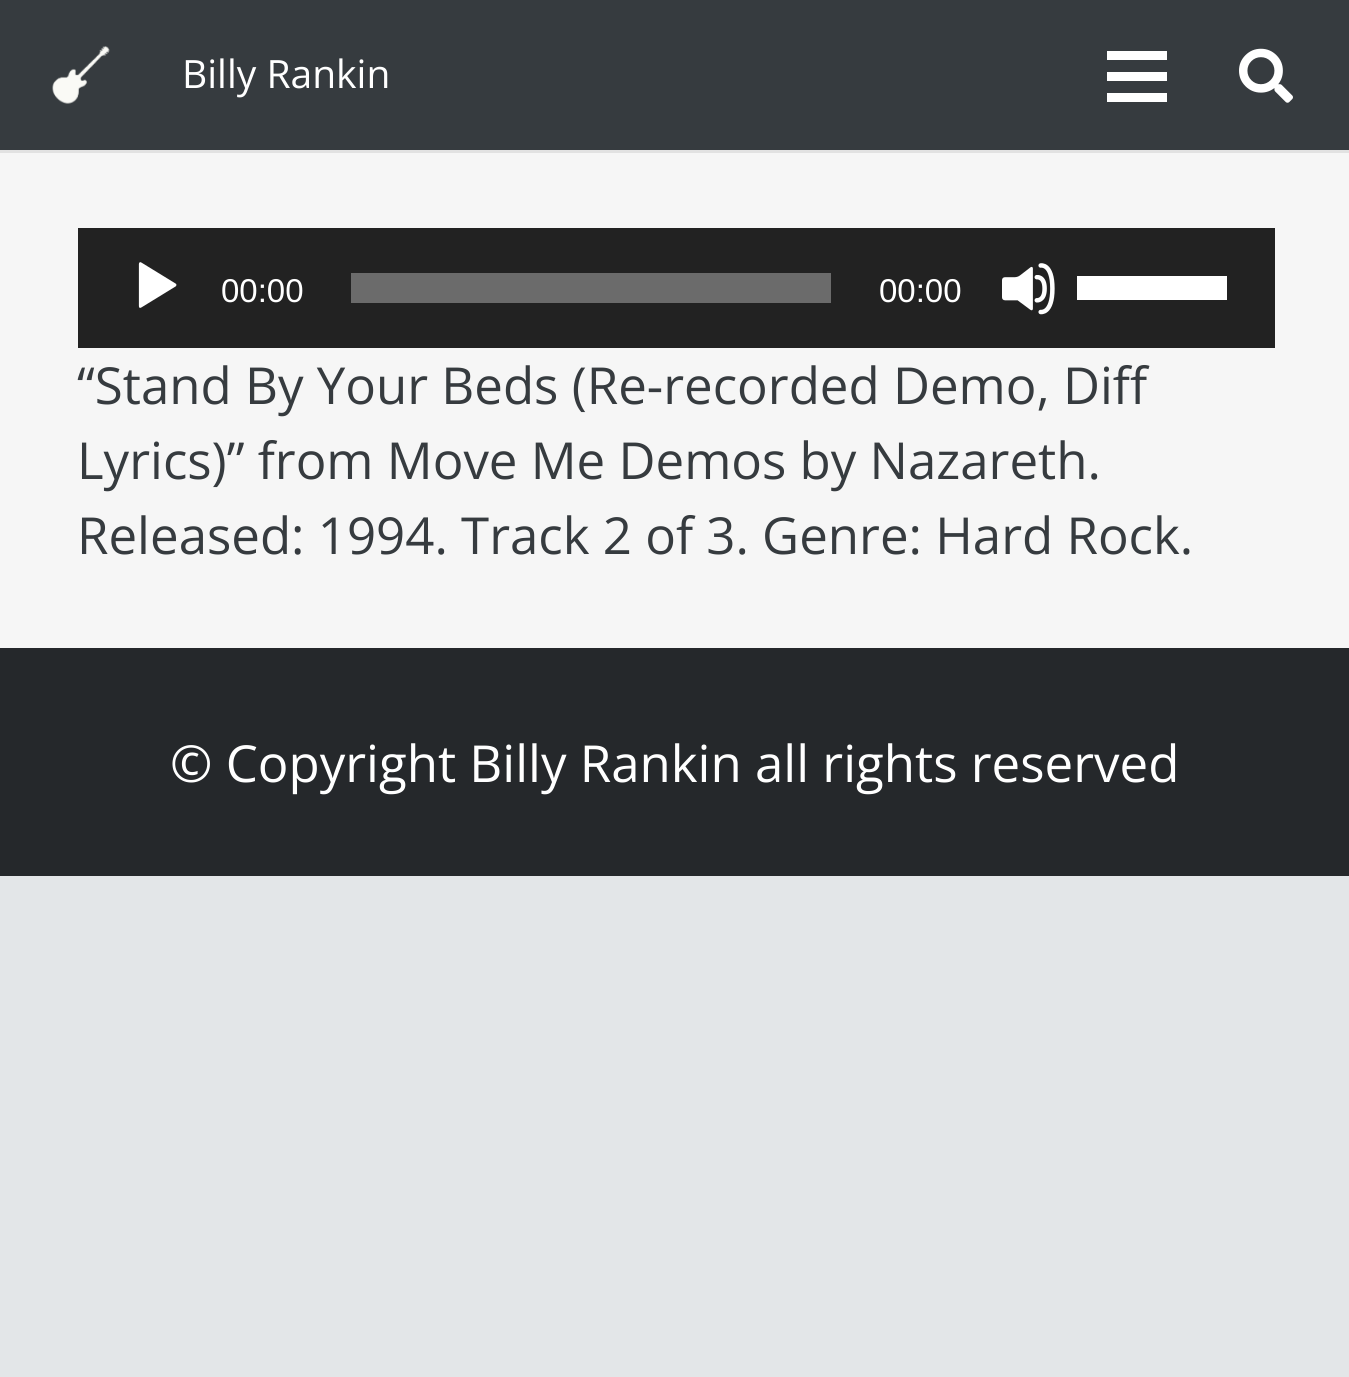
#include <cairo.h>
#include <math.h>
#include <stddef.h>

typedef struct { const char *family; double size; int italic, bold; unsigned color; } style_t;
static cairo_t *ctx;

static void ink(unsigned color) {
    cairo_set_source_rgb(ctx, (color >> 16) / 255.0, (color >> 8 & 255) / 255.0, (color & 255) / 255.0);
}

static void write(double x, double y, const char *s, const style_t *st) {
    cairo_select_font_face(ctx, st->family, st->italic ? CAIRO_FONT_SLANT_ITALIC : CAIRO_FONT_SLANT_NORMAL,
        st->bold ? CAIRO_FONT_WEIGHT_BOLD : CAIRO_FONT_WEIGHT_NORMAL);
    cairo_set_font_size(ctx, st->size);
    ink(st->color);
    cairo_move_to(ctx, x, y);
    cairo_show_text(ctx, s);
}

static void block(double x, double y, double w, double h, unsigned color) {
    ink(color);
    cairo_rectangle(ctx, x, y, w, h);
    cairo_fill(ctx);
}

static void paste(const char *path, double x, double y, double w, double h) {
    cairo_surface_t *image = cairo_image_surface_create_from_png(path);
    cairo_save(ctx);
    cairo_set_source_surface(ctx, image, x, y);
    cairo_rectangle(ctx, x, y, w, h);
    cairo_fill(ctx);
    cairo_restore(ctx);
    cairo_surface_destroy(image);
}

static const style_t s1 = {"Open Sans", 39, 0, 0, 0xffffff};
static const style_t s2 = {"Liberation Sans", 33, 0, 0, 0xffffff};
static const style_t s3 = {"Open Sans", 51, 0, 0, 0x363b3f};
static const style_t s4 = {"Open Sans", 51, 0, 0, 0xffffff};

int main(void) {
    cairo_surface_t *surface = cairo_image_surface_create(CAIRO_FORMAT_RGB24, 1349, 1377);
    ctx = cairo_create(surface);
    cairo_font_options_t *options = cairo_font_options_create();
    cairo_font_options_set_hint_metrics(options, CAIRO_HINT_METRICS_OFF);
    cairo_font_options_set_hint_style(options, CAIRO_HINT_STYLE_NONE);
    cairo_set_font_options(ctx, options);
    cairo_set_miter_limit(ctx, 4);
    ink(0xe3e6e8);
    cairo_paint(ctx);
    block(0, 153, 1349, 495, 0xf6f6f6);
    block(0, 150, 1349, 3, 0xe2e2e2);
    block(0, 0, 1349, 150, 0x363b3f);
    paste("pic1.png", 52, 46, 58, 58);
    write(182, 88, "Billy Rankin", &s1);
    block(1107, 72, 60, 9, 0xffffff);
    block(1107, 51, 60, 9, 0xffffff);
    block(1107, 93, 60, 9, 0xffffff);
    paste("pic2.png", 1239, 48, 54, 55);
    block(78, 228, 1197, 120, 0x222222);
    paste("pic3.png", 138, 262, 39, 46);
    write(221, 302, "00:00", &s2);
    block(351, 273, 480, 30, 0x6b6b6b);
    write(879, 302, "00:00", &s2);
    paste("pic4.png", 1002, 263, 53, 52);
    block(1077, 276, 150, 24, 0xffffff);
    write(77, 404, "“Stand By Your Beds (Re-recorded Demo, Diff", &s3);
    write(77, 479, "Lyrics)” from Move Me Demos by Nazareth.", &s3);
    write(77, 554, "Released: 1994. Track 2 of 3. Genre: Hard Rock.", &s3);
    block(0, 648, 1349, 228, 0x25282b);
    write(170, 782, "© Copyright Billy Rankin all rights reserved", &s4);
    cairo_surface_write_to_png(surface, "screenshot.png");
    cairo_font_options_destroy(options);
    cairo_destroy(ctx);
    cairo_surface_destroy(surface);
    return 0;
}
